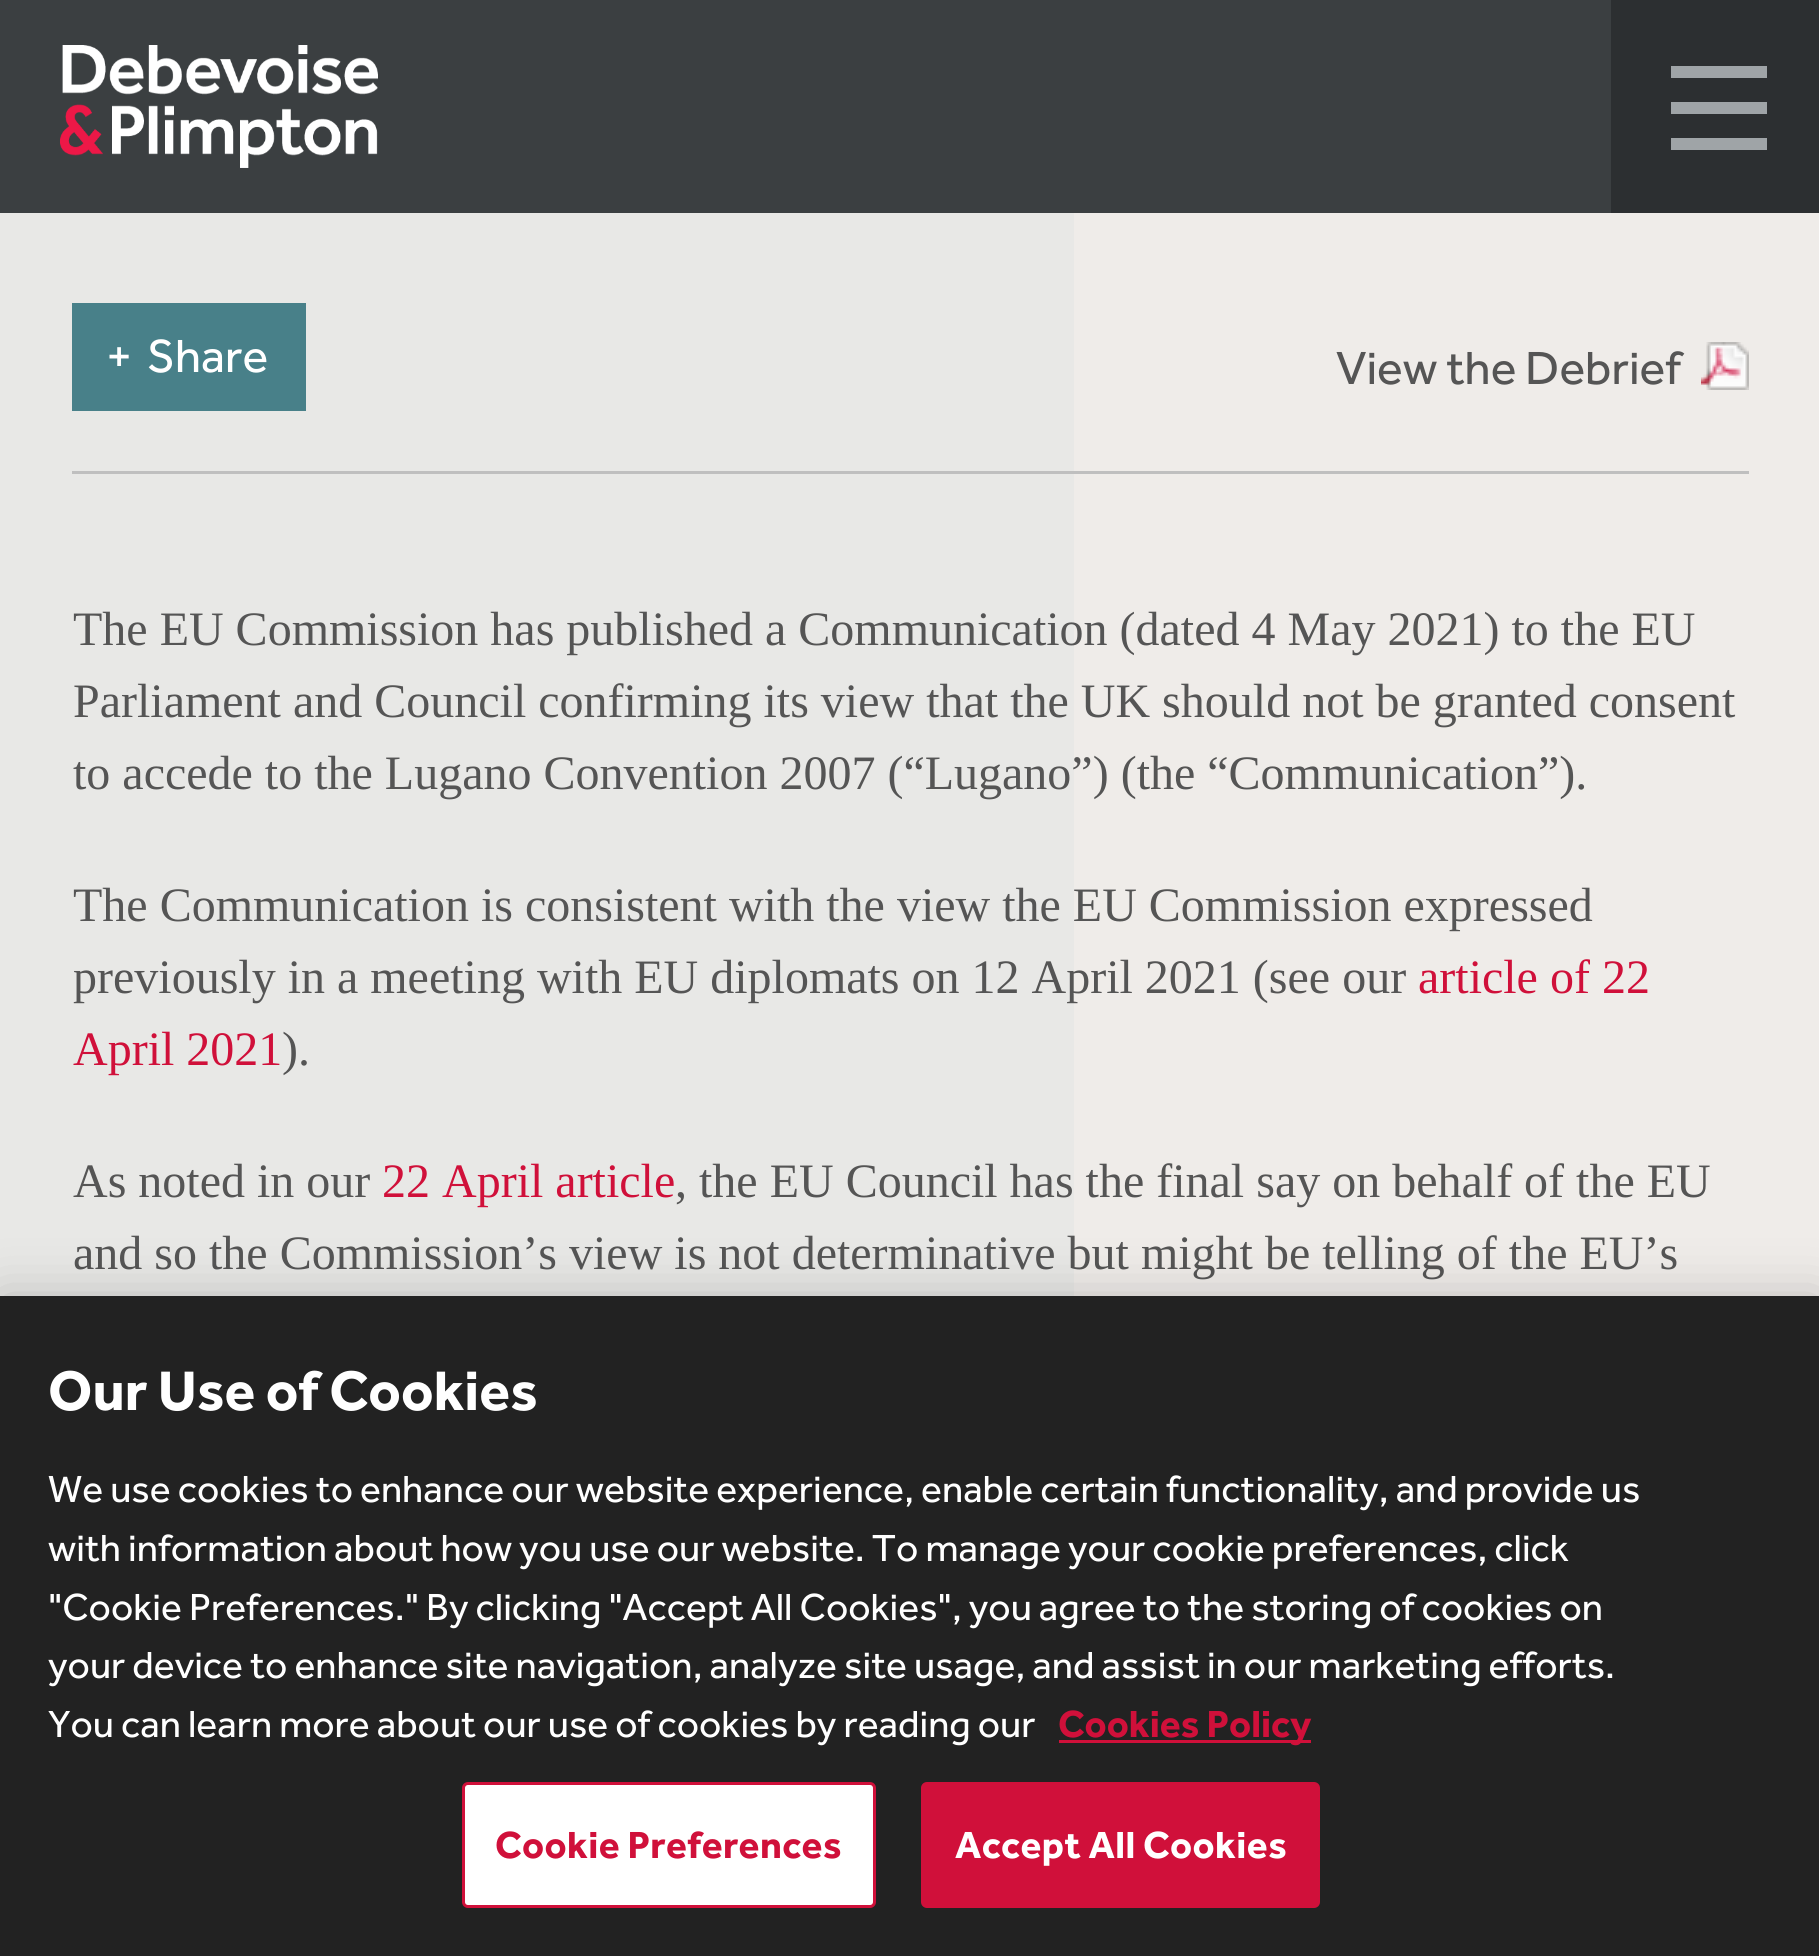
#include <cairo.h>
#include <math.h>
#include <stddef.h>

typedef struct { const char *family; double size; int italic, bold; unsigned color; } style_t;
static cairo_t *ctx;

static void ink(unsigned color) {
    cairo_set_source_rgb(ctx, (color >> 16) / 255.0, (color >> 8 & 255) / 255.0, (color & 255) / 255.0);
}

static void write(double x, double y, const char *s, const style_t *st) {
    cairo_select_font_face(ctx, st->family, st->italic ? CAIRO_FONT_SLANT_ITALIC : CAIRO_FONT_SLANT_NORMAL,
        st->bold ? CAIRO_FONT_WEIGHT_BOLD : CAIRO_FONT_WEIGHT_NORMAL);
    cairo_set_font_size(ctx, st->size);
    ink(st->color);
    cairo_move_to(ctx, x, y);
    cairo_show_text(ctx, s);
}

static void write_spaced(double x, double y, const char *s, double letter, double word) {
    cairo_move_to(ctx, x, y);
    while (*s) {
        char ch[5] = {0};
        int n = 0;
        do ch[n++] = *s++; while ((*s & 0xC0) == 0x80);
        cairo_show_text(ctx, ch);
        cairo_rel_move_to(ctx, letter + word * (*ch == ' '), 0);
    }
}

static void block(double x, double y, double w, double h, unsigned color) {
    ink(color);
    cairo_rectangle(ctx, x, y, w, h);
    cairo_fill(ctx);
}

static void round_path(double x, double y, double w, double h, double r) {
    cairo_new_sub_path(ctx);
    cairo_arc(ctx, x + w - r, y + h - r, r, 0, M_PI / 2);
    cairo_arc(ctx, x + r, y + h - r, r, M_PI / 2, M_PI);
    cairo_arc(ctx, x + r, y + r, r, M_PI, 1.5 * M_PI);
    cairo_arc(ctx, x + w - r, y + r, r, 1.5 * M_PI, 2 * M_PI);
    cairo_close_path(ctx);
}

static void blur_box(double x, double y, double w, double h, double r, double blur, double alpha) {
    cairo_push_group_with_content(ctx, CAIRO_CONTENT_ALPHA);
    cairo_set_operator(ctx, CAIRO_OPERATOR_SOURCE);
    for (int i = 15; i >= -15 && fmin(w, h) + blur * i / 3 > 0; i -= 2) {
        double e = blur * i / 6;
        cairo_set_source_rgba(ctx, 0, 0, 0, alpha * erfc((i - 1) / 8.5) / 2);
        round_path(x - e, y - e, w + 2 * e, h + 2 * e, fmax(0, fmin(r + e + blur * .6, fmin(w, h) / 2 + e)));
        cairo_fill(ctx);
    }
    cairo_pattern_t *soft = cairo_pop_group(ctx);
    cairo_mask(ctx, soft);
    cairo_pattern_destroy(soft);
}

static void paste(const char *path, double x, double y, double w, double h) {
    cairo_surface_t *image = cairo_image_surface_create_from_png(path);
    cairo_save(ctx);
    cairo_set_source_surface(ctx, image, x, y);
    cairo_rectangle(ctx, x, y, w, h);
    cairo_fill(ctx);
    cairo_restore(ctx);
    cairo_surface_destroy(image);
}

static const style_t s1 = {"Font", 48, 0, 0, 0xffffff};
static const style_t s2 = {"Font", 48, 0, 0, 0x555555};
static const style_t s3 = {"Liberation Serif", 48, 0, 0, 0x555555};
static const style_t s4 = {"Liberation Serif", 48, 0, 0, 0xd0103a};
static const style_t s5 = {"Font", 57.5, 0, 1, 0xffffff};
static const style_t s6 = {"Font", 39, 0, 0, 0xffffff};
static const style_t s7 = {"Font", 39, 0, 1, 0xd0103a};

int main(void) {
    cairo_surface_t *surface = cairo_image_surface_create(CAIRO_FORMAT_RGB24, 1819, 1956);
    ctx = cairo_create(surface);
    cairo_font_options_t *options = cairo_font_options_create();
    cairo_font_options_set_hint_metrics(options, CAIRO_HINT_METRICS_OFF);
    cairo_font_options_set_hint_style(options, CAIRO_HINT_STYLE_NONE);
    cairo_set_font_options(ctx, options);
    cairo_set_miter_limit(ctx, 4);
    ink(0xefece9);
    cairo_paint(ctx);
    block(0, 213, 1074, 1083, 0xe8e8e6);
    block(0, 0, 1611, 213, 0x3b3f41);
    paste("pic1.png", 60, 45, 318, 123);
    block(1611, 0, 208, 213, 0x2c2f31);
    block(1671, 102, 96, 12, 0x9fa4a7);
    block(1671, 66, 96, 12, 0x9fa4a7);
    block(1671, 138, 96, 12, 0x9fa4a7);
    block(72, 303, 234, 108, 0x488089);
    write(106, 372, "+", &s1);
    write(147, 372, "Share", &s1);
    write(1336, 384, "View the Debrief", &s2);
    paste("pic2.png", 1701, 342, 48, 48);
    block(72, 471, 1677, 3, 0xbfbfbf);
    write(73, 645, "The EU Commission has published a Communication (dated 4 May 2021) to the EU", &s3);
    write(73, 717, "Parliament and Council confirming its view that the UK should not be granted consent", &s3);
    write(73, 789, "to accede to the Lugano Convention 2007 (“Lugano”) (the “Communication”).", &s3);
    write(73, 921, "The Communication is consistent with the view the EU Commission expressed", &s3);
    write(73, 993, "previously in a meeting with EU diplomats on 12 April 2021 (see our", &s3);
    write(1418, 993, "article of 22", &s4);
    write(73, 1065, "April 2021", &s4);
    write(282, 1065, ").", &s3);
    write(73, 1197, "As noted in our", &s3);
    write(382, 1197, "22 April article", &s4);
    write(675, 1197, ", the EU Council has the final say on behalf of the EU", &s3);
    write(73, 1269, "and so the Commission’s view is not determinative but might be telling of the EU’s", &s3);
    ink(0x000000);
    blur_box(0, 1296, 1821, 660, 0, 27, 0.2);
    block(0, 1296, 1819, 660, 0x222222);
    write(48, 1410, "Our Use of Cookies", &s5);
    write(48, 1502, "We use cookies to enhance our website experience, enable certain functionality, and provide us", &s6);
    write(48, 1561, "with information about how you use our website. To manage your cookie preferences, click", &s6);
    write(48, 1620, "\"Cookie Preferences.\" By clicking \"Accept All Cookies\", you agree to the storing of cookies on", &s6);
    write(48, 1678, "your device to enhance site navigation, analyze site usage, and assist in our marketing efforts.", &s6);
    write(48, 1737, "You can learn more about our use of cookies by reading our", &s6);
    block(1059, 1740, 252, 3, 0xd0103a);
    write(1058, 1737, "Cookies Policy", &s7);
    ink(0xffffff);
    round_path(463.5, 1783.5, 411, 123, 4.5);
    cairo_fill_preserve(ctx);
    ink(0xd0103a);
    cairo_set_line_width(ctx, 3);
    cairo_stroke(ctx);
    write_spaced(495, 1858, "Cookie Preferences", 0.4, 0);
    round_path(922.5, 1783.5, 396, 123, 4.5);
    cairo_fill_preserve(ctx);
    cairo_stroke(ctx);
    ink(0xffffff);
    write_spaced(955, 1858, "Accept All Cookies", 0.4, 0);
    cairo_surface_write_to_png(surface, "screenshot.png");
    cairo_font_options_destroy(options);
    cairo_destroy(ctx);
    cairo_surface_destroy(surface);
    return 0;
}
